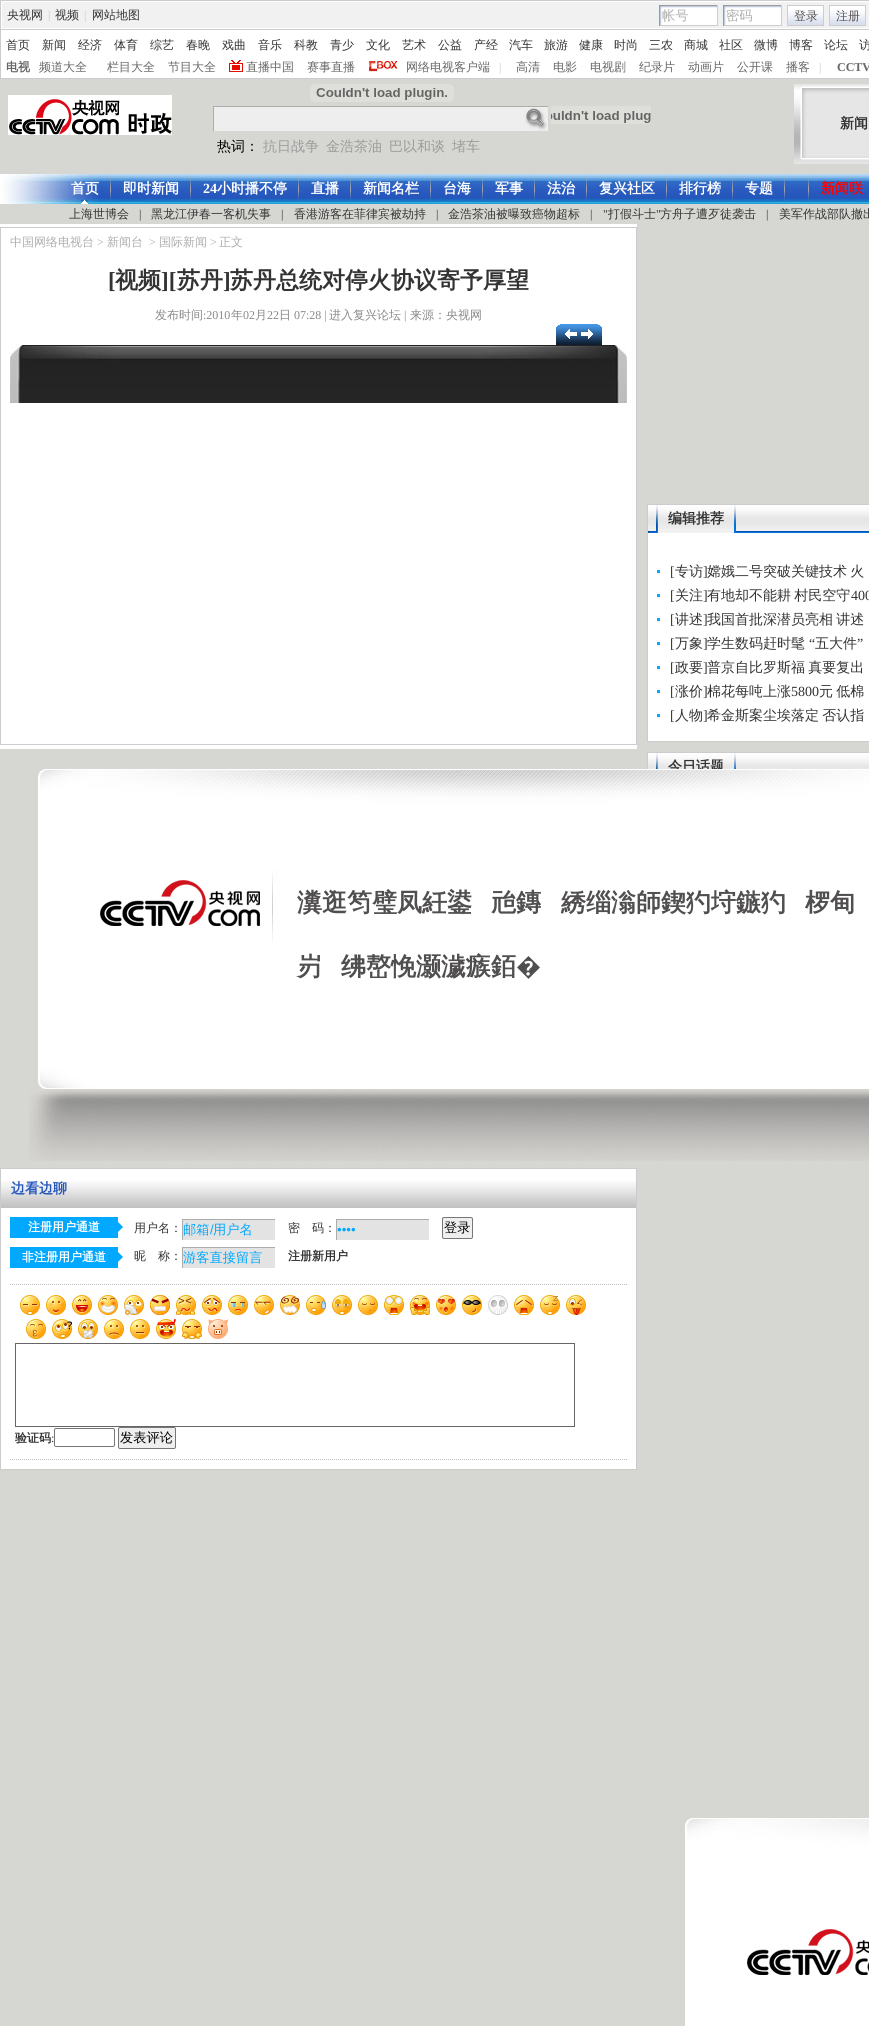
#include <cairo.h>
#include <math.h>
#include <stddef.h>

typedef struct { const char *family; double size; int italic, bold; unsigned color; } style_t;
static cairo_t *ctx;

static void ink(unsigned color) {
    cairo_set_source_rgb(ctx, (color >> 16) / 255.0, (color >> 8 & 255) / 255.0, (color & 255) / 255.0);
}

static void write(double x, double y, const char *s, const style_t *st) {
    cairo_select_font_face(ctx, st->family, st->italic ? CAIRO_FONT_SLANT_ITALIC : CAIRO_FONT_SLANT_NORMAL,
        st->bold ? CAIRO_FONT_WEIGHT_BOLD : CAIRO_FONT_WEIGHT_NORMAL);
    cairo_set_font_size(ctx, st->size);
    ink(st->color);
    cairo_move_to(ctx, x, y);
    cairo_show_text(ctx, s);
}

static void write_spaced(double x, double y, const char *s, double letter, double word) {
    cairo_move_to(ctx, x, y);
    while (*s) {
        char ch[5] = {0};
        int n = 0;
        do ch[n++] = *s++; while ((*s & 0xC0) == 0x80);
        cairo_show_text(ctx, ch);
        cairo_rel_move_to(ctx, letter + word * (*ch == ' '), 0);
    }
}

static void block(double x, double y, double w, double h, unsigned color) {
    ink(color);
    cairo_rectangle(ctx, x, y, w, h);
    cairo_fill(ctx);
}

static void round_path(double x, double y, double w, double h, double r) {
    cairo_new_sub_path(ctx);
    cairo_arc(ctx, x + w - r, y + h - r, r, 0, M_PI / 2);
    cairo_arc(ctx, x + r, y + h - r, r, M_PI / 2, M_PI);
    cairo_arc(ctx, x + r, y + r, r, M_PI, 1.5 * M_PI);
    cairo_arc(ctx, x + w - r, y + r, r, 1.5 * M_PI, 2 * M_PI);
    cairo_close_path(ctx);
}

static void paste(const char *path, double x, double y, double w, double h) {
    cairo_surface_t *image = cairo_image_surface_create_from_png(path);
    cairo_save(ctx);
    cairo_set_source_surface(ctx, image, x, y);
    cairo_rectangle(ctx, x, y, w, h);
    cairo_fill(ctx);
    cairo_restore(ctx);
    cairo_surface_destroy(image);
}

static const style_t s1 = {"WenQuanYi Zen Hei Medium", 12, 0, 0, 0x333333};
static const style_t s2 = {"Liberation Serif", 12, 0, 0, 0xcccccc};
static const style_t s3 = {"WenQuanYi Zen Hei Medium", 13.25, 0, 0, 0xadadad};
static const style_t s4 = {"WenQuanYi Zen Hei Medium", 12, 0, 0, 0x585252};
static const style_t s5 = {"WenQuanYi Zen Hei", 12, 0, 1, 0x666666};
static const style_t s6 = {"WenQuanYi Zen Hei Medium", 12, 0, 0, 0x666666};
static const style_t s7 = {"Liberation Serif", 12, 0, 1, 0x666666};
static const style_t s8 = {"WenQuanYi Zen Hei Medium", 14, 0, 0, 0x000000};
static const style_t s9 = {"WenQuanYi Zen Hei Medium", 14, 0, 0, 0x9b9b9b};
static const style_t s10 = {"WenQuanYi Zen Hei", 14, 0, 1, 0xffffff};
static const style_t s11 = {"Liberation Serif", 12, 0, 0, 0x333333};
static const style_t s12 = {"Liberation Serif", 14, 0, 1, 0xffffff};
static const style_t s13 = {"WenQuanYi Zen Hei", 14, 0, 1, 0xff0000};
static const style_t s14 = {"WenQuanYi Zen Hei Medium", 12, 0, 0, 0xadadad};
static const style_t s15 = {"Liberation Serif", 12, 0, 0, 0xadadad};
static const style_t s16 = {"Liberation Serif", 23, 0, 1, 0x333333};
static const style_t s17 = {"WenQuanYi Zen Hei", 23, 0, 1, 0x333333};
static const style_t s18 = {"WenQuanYi Zen Hei Medium", 12, 0, 0, 0x898989};
static const style_t s19 = {"Liberation Serif", 12, 0, 0, 0x898989};
static const style_t s20 = {"WenQuanYi Zen Hei", 14, 0, 1, 0x333333};
static const style_t s21 = {"Liberation Serif", 14, 0, 0, 0x333333};
static const style_t s22 = {"WenQuanYi Zen Hei Medium", 14, 0, 0, 0x333333};
static const style_t s23 = {"WenQuanYi Zen Hei", 25, 0, 1, 0x504e4e};
static const style_t s24 = {"Noto Sans", 25, 0, 1, 0x504e4e};
static const style_t s25 = {"WenQuanYi Zen Hei", 14, 0, 1, 0x2557bd};
static const style_t s26 = {"WenQuanYi Zen Hei", 12, 0, 1, 0xffffff};
static const style_t s27 = {"WenQuanYi Zen Hei Medium", 13.25, 0, 0, 0x00a8ff};
static const style_t s28 = {"Liberation Sans", 13.25, 0, 0, 0x00a8ff};
static const style_t s29 = {"WenQuanYi Zen Hei Medium", 13.25, 0, 0, 0x000000};
static const style_t s30 = {"WenQuanYi Zen Hei", 12, 0, 1, 0x333333};

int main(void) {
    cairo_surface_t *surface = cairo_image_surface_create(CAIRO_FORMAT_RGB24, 869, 2026);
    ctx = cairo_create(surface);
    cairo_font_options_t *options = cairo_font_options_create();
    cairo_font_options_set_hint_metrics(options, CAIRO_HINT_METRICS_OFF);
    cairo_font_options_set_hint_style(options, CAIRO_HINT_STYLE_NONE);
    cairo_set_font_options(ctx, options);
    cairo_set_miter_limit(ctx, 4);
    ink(0xd6d6d2);
    cairo_paint(ctx);
    block(1, 30, 868, 48, 0xffffff);
    cairo_rectangle(ctx, 0.5, 0.5, 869, 78);
    ink(0xcccccc);
    cairo_set_line_width(ctx, 1);
    cairo_stroke(ctx);
    ink(0xf1f1f1);
    cairo_rectangle(ctx, 1.5, 1.5, 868, 27);
    cairo_fill_preserve(ctx);
    ink(0xffffff);
    cairo_stroke(ctx);
    write(7, 19, "央视网", &s1);
    write(48, 19, "|", &s2);
    write(55, 19, "视频", &s1);
    write(84, 19, "|", &s2);
    write(92, 19, "网站地图", &s1);
    paste("pic1.png", 660, 6, 57, 19);
    block(659, 5, 59, 1, 0x9a9a9a);
    block(717, 5, 1, 21, 0xcdcdcd);
    block(659, 25, 59, 1, 0xcdcdcd);
    block(659, 5, 1, 21, 0x9a9a9a);
    write(662, 20, "帐号", &s3);
    paste("pic1.png", 724, 6, 57, 19);
    block(723, 5, 59, 1, 0x9a9a9a);
    block(781, 5, 1, 21, 0xcdcdcd);
    block(723, 25, 59, 1, 0xcdcdcd);
    block(723, 5, 1, 21, 0x9a9a9a);
    write(726, 20, "密码", &s3);
    paste("pic2.png", 788, 6, 35, 19);
    cairo_rectangle(ctx, 787.5, 5.5, 36, 20);
    ink(0xcdcdcd);
    cairo_stroke(ctx);
    write(794, 20, "登录", &s4);
    paste("pic2.png", 830, 6, 35, 19);
    cairo_rectangle(ctx, 829.5, 5.5, 36, 20);
    ink(0xcdcdcd);
    cairo_stroke(ctx);
    write(836, 20, "注册", &s4);
    block(1, 29, 868, 1, 0xcccccc);
    write(6, 49, "首页", &s1);
    write(42, 49, "新闻", &s1);
    write(78, 49, "经济", &s1);
    write(114, 49, "体育", &s1);
    write(150, 49, "综艺", &s1);
    write(186, 49, "春晚", &s1);
    write(222, 49, "戏曲", &s1);
    write(258, 49, "音乐", &s1);
    write(294, 49, "科教", &s1);
    write(330, 49, "青少", &s1);
    write(366, 49, "文化", &s1);
    write(402, 49, "艺术", &s1);
    write(438, 49, "公益", &s1);
    write(474, 49, "产经", &s1);
    write(509, 49, "汽车", &s1);
    write(544, 49, "旅游", &s1);
    write(579, 49, "健康", &s1);
    write(614, 49, "时尚", &s1);
    write(649, 49, "三农", &s1);
    write(684, 49, "商城", &s1);
    write(719, 49, "社区", &s1);
    write(754, 49, "微博", &s1);
    write(789, 49, "博客", &s1);
    write(824, 49, "论坛", &s1);
    write(859, 49, "访", &s1);
    write(6, 71, "电视", &s5);
    write(39, 71, "频道大全", &s6);
    write(107, 71, "栏目大全", &s6);
    write(168, 71, "节目大全", &s6);
    paste("pic3.png", 229, 60, 14, 12);
    write(246, 71, "直播中国", &s6);
    write(307, 71, "赛事直播", &s6);
    paste("pic4.png", 368, 60, 30, 12);
    write(406, 71, "网络电视客户端", &s6);
    write(499, 71, "|", &s2);
    write(516, 71, "高清", &s6);
    write(553, 71, "电影", &s6);
    write(590, 71, "电视剧", &s6);
    write(639, 71, "纪录片", &s6);
    write(688, 71, "动画片", &s6);
    write(737, 71, "公开课", &s6);
    write(786, 71, "播客", &s6);
    write(819, 71, "|", &s2);
    write(837, 71, "CCTV", &s7);
    paste("pic5.png", 8, 95, 164, 40);
    paste("pic6.png", 794, 84, 75, 80);
    cairo_select_font_face(ctx, "WenQuanYi Zen Hei", CAIRO_FONT_SLANT_NORMAL, CAIRO_FONT_WEIGHT_BOLD);
    cairo_set_font_size(ctx, 14);
    ink(0x333333);
    write_spaced(840, 128, "新闻", 0, -1);
    paste("pic7.png", 310, 84, 144, 18);
    block(214, 107, 334, 24, 0xeeeeee);
    paste("pic8.png", 525, 108, 22, 23);
    block(213, 106, 335, 1, 0xacacac);
    block(213, 106, 1, 25, 0xacacac);
    paste("pic9.png", 551, 106, 100, 18);
    write(217, 151, "热词：", &s8);
    write(263, 151, "抗日战争", &s9);
    write(326, 151, "金浩茶油", &s9);
    write(389, 151, "巴以和谈", &s9);
    write(452, 151, "堵车", &s9);
    paste("pic10.png", 0, 174, 869, 30);
    paste("pic11.png", 808, 174, 1, 30);
    paste("pic11.png", 110, 174, 1, 30);
    write(71, 193, "首页", &s10);
    paste("pic12.png", 81, 200, 7, 4);
    write(69, 218, "上海世博会", &s1);
    write(139, 218, "|", &s11);
    write(151, 218, "黑龙江伊春一客机失事", &s1);
    write(281, 218, "|", &s11);
    write(294, 218, "香港游客在菲律宾被劫持", &s1);
    write(436, 218, "|", &s11);
    write(448, 218, "金浩茶油被曝致癌物超标", &s1);
    write(590, 218, "|", &s11);
    write(603, 218, "\"", &s11);
    write(608, 218, "打假斗士", &s1);
    write(656, 218, "\"", &s11);
    write(660, 218, "方舟子遭歹徒袭击", &s1);
    write(766, 218, "|", &s11);
    write(779, 218, "美军作战部队撤出", &s1);
    paste("pic11.png", 190, 174, 1, 30);
    write(123, 193, "即时新闻", &s10);
    paste("pic11.png", 298, 174, 1, 30);
    write(203, 193, "24", &s12);
    write(217, 193, "小时播不停", &s10);
    paste("pic11.png", 350, 174, 1, 30);
    write(311, 193, "直播", &s10);
    paste("pic11.png", 430, 174, 1, 30);
    write(363, 193, "新闻名栏", &s10);
    paste("pic11.png", 482, 174, 1, 30);
    write(443, 193, "台海", &s10);
    paste("pic11.png", 534, 174, 1, 30);
    write(495, 193, "军事", &s10);
    paste("pic11.png", 586, 174, 1, 30);
    write(547, 193, "法治", &s10);
    paste("pic11.png", 666, 174, 1, 30);
    write(599, 193, "复兴社区", &s10);
    paste("pic11.png", 732, 174, 1, 30);
    write(679, 193, "排行榜", &s10);
    paste("pic11.png", 784, 174, 1, 30);
    write(745, 193, "专题", &s10);
    write(821, 193, "新闻联", &s13);
    block(0, 224, 637, 525, 0xffffff);
    cairo_rectangle(ctx, 0.5, 227.5, 636, 517);
    ink(0xcccccc);
    cairo_stroke(ctx);
    write(10, 246, "中国网络电视台", &s14);
    write(97, 246, ">", &s15);
    write(107, 246, "新闻台", &s14);
    write(149, 246, ">", &s15);
    write(159, 246, "国际新闻", &s14);
    write(210, 246, ">", &s15);
    write(219, 246, "正文", &s14);
    write(108, 288, "[", &s16);
    write(115, 288, "视频", &s17);
    write(161, 288, "][", &s16);
    write(177, 288, "苏丹", &s17);
    write(223, 288, "]", &s16);
    write(230, 288, "苏丹总统对停火协议寄予厚望", &s17);
    write(155, 319, "发布时间", &s18);
    write(203, 319, ":2010", &s19);
    write(231, 319, "年", &s18);
    write(243, 319, "02", &s19);
    write(255, 319, "月", &s18);
    write(267, 319, "22", &s19);
    write(279, 319, "日", &s18);
    write(294, 319, "07:28 |", &s19);
    write(329, 319, "进入复兴论坛", &s18);
    write(404, 319, "|", &s19);
    write(410, 319, "来源：央视网", &s18);
    paste("pic13.png", 10, 345, 617, 58);
    paste("pic14.png", 556, 324, 46, 21);
    block(648, 533, 221, 208, 0xffffff);
    cairo_rectangle(ctx, 647.5, 504.5, 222, 237);
    ink(0xcccccc);
    cairo_stroke(ctx);
    paste("pic15.png", 648, 505, 221, 28);
    paste("pic16.png", 658, 505, 78, 28);
    write(668, 523, "编辑推荐", &s20);
    block(657, 570, 3, 3, 0x00a8ff);
    write(670, 576, "[", &s21);
    write(675, 576, "专访", &s22);
    write(703, 576, "]", &s21);
    cairo_select_font_face(ctx, "WenQuanYi Zen Hei Medium", CAIRO_FONT_SLANT_NORMAL, CAIRO_FONT_WEIGHT_NORMAL);
    write_spaced(707, 576, "嫦娥二号突破关键技术 火", 0, -1);
    block(657, 594, 3, 3, 0x00a8ff);
    write(670, 600, "[", &s21);
    write(675, 600, "关注", &s22);
    write(703, 600, "]", &s21);
    cairo_select_font_face(ctx, "WenQuanYi Zen Hei Medium", CAIRO_FONT_SLANT_NORMAL, CAIRO_FONT_WEIGHT_NORMAL);
    write_spaced(707, 600, "有地却不能耕 村民空守", 0, -1);
    write(851, 600, "400", &s21);
    block(657, 618, 3, 3, 0x00a8ff);
    write(670, 624, "[", &s21);
    write(675, 624, "讲述", &s22);
    write(703, 624, "]", &s21);
    cairo_select_font_face(ctx, "WenQuanYi Zen Hei Medium", CAIRO_FONT_SLANT_NORMAL, CAIRO_FONT_WEIGHT_NORMAL);
    write_spaced(707, 624, "我国首批深潜员亮相 讲述", 0, -1);
    block(657, 642, 3, 3, 0x00a8ff);
    write(670, 648, "[", &s21);
    write(675, 648, "万象", &s22);
    write(703, 648, "]", &s21);
    write(707, 648, "学生数码赶时髦", &s22);
    write(809, 648, "“", &s21);
    write(815, 648, "五大件", &s22);
    write(857, 648, "”", &s21);
    block(657, 666, 3, 3, 0x00a8ff);
    write(670, 672, "[", &s21);
    write(675, 672, "政要", &s22);
    write(703, 672, "]", &s21);
    cairo_select_font_face(ctx, "WenQuanYi Zen Hei Medium", CAIRO_FONT_SLANT_NORMAL, CAIRO_FONT_WEIGHT_NORMAL);
    write_spaced(707, 672, "普京自比罗斯福 真要复出", 0, -1);
    block(657, 690, 3, 3, 0x00a8ff);
    write(670, 696, "[", &s21);
    write(675, 696, "涨价", &s22);
    write(703, 696, "]", &s21);
    write(707, 696, "棉花每吨上涨", &s22);
    write(791, 696, "5800", &s21);
    cairo_select_font_face(ctx, "WenQuanYi Zen Hei Medium", CAIRO_FONT_SLANT_NORMAL, CAIRO_FONT_WEIGHT_NORMAL);
    write_spaced(819, 696, "元 低棉", 0, -1);
    block(657, 714, 3, 3, 0x00a8ff);
    write(670, 720, "[", &s21);
    write(675, 720, "人物", &s22);
    write(703, 720, "]", &s21);
    cairo_select_font_face(ctx, "WenQuanYi Zen Hei Medium", CAIRO_FONT_SLANT_NORMAL, CAIRO_FONT_WEIGHT_NORMAL);
    write_spaced(707, 720, "希金斯案尘埃落定 否认指", 0, -1);
    cairo_rectangle(ctx, 647.5, 752.5, 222, 237);
    ink(0xcccccc);
    cairo_stroke(ctx);
    paste("pic17.png", 648, 753, 221, 16);
    paste("pic18.png", 658, 753, 78, 16);
    write(668, 771, "今日话题", &s20);
    paste("pic19.png", 680, 1818, 189, 208);
    paste("pic20.png", 29, 769, 840, 392);
    write(297, 911, "瀵逛笉璧凤紝鍙", &s23);
    write(491, 911, "兘鏄", &s23);
    write(561, 911, "綉缁滃師鍥犳垨鏃犳", &s23);
    write(805, 911, "椤甸", &s23);
    write(297, 975, "岃", &s23);
    write(341, 975, "绋嶅悗灏濊瘯銆", &s23);
    write(516, 975, "�", &s24);
    ink(0xffffff);
    cairo_rectangle(ctx, 0.5, 1168.5, 636, 301);
    cairo_fill_preserve(ctx);
    ink(0xcccccc);
    cairo_stroke(ctx);
    paste("pic21.png", 1, 1181, 635, 27);
    write(11, 1193, "边看边聊", &s25);
    block(10, 1217, 108, 21, 0x00a8ff);
    write(28, 1231, "注册用户通道", &s26);
    ink(0x00a8ff);
    cairo_new_path(ctx);
    cairo_move_to(ctx, 118, 1232);
    cairo_line_to(ctx, 118, 1222);
    cairo_line_to(ctx, 123, 1227);
    cairo_close_path(ctx);
    cairo_fill(ctx);
    write(134, 1232, "用户名：", &s1);
    block(183, 1220, 92, 20, 0xe3e3e3);
    block(182, 1219, 93, 1, 0xacacac);
    block(182, 1219, 1, 21, 0xacacac);
    write(183, 1234, "邮箱", &s27);
    write(210, 1234, "/", &s28);
    write(213, 1234, "用户名", &s27);
    write(288, 1232, "密　码：", &s1);
    block(337, 1220, 92, 20, 0xe3e3e3);
    block(336, 1219, 93, 1, 0xacacac);
    block(336, 1219, 1, 21, 0xacacac);
    write(337, 1234, "••••", &s28);
    ink(0xefefef);
    round_path(442.5, 1217.5, 30, 21, 1.5);
    cairo_fill_preserve(ctx);
    ink(0x767676);
    cairo_stroke(ctx);
    write(444, 1232, "登录", &s29);
    block(10, 1247, 108, 21, 0x00a8ff);
    write(22, 1261, "非注册用户通道", &s26);
    ink(0x00a8ff);
    cairo_new_path(ctx);
    cairo_move_to(ctx, 118, 1262);
    cairo_line_to(ctx, 118, 1252);
    cairo_line_to(ctx, 123, 1257);
    cairo_close_path(ctx);
    cairo_fill(ctx);
    write(134, 1260, "昵　称：", &s1);
    block(183, 1248, 92, 20, 0xe3e3e3);
    block(182, 1247, 93, 1, 0xacacac);
    block(182, 1247, 1, 21, 0xacacac);
    write(183, 1262, "游客直接留言", &s27);
    write(288, 1260, "注册新用户", &s30);
    cairo_new_path(ctx);
    cairo_move_to(ctx, 10, 1284.5);
    cairo_line_to(ctx, 627, 1284.5);
    ink(0xc0c0c0);
    cairo_set_dash(ctx, (double[]){1, 1}, 2, 0);
    cairo_stroke(ctx);
    cairo_new_path(ctx);
    cairo_move_to(ctx, 10, 1459.5);
    cairo_line_to(ctx, 627, 1459.5);
    cairo_stroke(ctx);
    paste("pic22.png", 20, 1295, 20, 20);
    paste("pic23.png", 46, 1295, 20, 20);
    paste("pic24.png", 72, 1295, 20, 20);
    paste("pic25.png", 98, 1295, 20, 20);
    paste("pic26.png", 124, 1295, 20, 20);
    paste("pic27.png", 150, 1295, 20, 20);
    paste("pic28.png", 176, 1295, 20, 20);
    paste("pic29.png", 202, 1295, 20, 20);
    paste("pic30.png", 228, 1295, 20, 20);
    paste("pic31.png", 254, 1295, 20, 20);
    paste("pic32.png", 280, 1295, 20, 20);
    paste("pic33.png", 306, 1295, 20, 20);
    paste("pic34.png", 332, 1295, 20, 20);
    paste("pic35.png", 358, 1295, 20, 20);
    paste("pic36.png", 384, 1295, 20, 20);
    paste("pic37.png", 410, 1295, 20, 20);
    paste("pic38.png", 436, 1295, 20, 20);
    paste("pic39.png", 462, 1295, 20, 20);
    paste("pic40.png", 488, 1295, 20, 20);
    paste("pic41.png", 514, 1295, 20, 20);
    paste("pic42.png", 540, 1295, 20, 20);
    paste("pic43.png", 566, 1295, 20, 20);
    paste("pic44.png", 26, 1319, 20, 20);
    paste("pic45.png", 52, 1319, 20, 20);
    paste("pic46.png", 78, 1319, 20, 20);
    paste("pic47.png", 104, 1319, 20, 20);
    paste("pic48.png", 130, 1319, 20, 20);
    paste("pic49.png", 156, 1319, 20, 20);
    paste("pic50.png", 182, 1319, 20, 20);
    paste("pic51.png", 208, 1319, 20, 20);
    cairo_rectangle(ctx, 15.5, 1343.5, 559, 83);
    ink(0x666666);
    cairo_set_dash(ctx, NULL, 0, 0);
    cairo_stroke(ctx);
    write(15, 1442, "验证码", &s30);
    write(51, 1442, ":", &s11);
    round_path(54.5, 1428.5, 60, 18, 1.5);
    ink(0x767676);
    cairo_stroke(ctx);
    ink(0xefefef);
    round_path(118.5, 1427.5, 57, 21, 1.5);
    cairo_fill_preserve(ctx);
    ink(0x767676);
    cairo_stroke(ctx);
    write(120, 1442, "发表评论", &s29);
    cairo_surface_write_to_png(surface, "screenshot.png");
    cairo_font_options_destroy(options);
    cairo_destroy(ctx);
    cairo_surface_destroy(surface);
    return 0;
}
